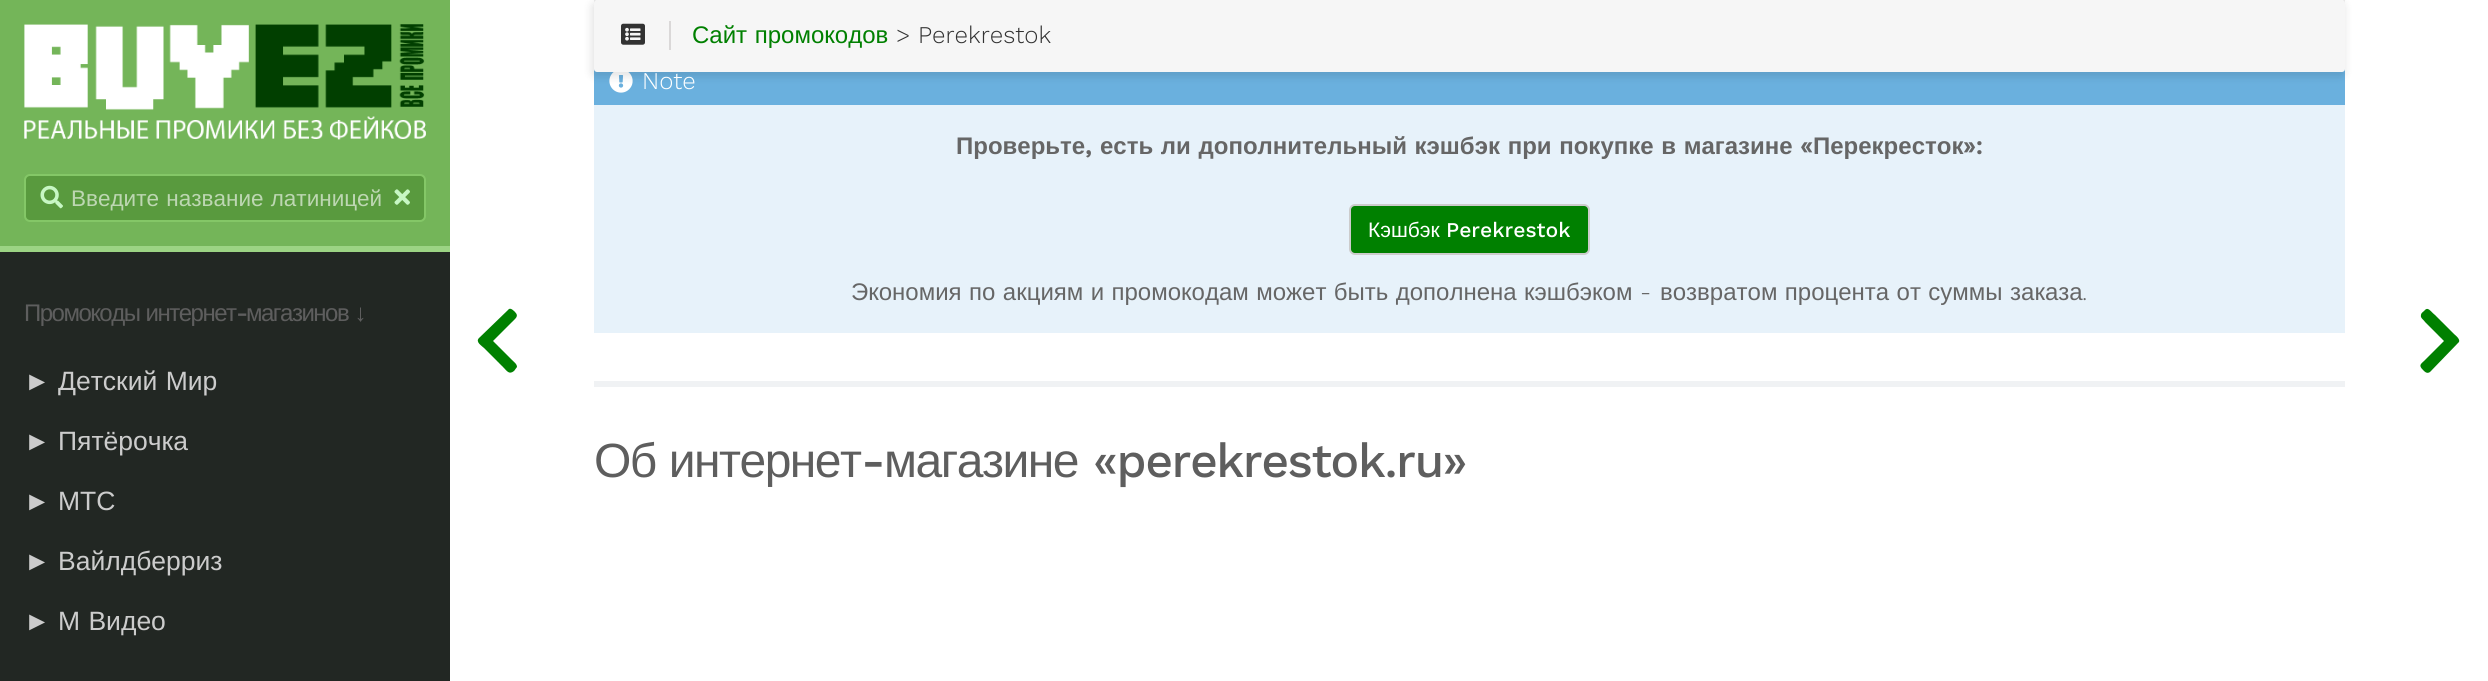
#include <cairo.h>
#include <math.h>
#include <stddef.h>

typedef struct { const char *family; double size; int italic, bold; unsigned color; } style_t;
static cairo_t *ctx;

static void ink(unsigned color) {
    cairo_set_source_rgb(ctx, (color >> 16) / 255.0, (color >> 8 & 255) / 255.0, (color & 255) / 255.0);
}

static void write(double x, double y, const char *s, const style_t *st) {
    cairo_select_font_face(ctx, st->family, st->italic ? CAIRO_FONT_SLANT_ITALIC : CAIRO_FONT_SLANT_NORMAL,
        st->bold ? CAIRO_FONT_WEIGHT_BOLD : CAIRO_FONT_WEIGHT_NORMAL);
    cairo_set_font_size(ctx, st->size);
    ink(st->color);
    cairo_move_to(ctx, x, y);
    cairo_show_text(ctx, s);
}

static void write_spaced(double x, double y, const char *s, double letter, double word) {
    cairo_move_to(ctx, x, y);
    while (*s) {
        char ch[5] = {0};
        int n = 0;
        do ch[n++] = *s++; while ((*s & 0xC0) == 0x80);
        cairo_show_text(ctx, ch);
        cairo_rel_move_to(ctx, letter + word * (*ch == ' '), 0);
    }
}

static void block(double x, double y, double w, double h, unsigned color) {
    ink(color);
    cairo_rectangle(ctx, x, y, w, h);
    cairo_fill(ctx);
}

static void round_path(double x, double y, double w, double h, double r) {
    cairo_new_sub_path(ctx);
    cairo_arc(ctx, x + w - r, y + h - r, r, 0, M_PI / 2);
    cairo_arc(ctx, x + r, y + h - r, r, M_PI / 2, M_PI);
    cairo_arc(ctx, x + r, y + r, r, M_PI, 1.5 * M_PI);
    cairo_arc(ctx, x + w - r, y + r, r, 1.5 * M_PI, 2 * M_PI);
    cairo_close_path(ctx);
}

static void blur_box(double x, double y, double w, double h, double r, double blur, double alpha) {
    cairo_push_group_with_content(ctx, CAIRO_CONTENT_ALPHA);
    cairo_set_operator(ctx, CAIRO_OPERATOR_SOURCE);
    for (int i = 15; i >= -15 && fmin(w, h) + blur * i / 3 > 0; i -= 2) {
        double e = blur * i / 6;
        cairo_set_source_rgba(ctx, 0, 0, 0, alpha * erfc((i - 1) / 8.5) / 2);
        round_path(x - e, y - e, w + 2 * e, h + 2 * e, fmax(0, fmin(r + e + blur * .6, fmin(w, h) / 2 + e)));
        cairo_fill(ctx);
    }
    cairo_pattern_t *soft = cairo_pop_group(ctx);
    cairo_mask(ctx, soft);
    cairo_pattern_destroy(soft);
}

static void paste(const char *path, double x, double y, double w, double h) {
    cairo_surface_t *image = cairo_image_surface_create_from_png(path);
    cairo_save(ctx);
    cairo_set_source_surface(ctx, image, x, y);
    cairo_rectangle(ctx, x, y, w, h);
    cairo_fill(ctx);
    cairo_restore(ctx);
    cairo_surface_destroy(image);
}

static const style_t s1 = {"Liberation Sans", 26.5, 0, 0, 0xcccccc};
static const style_t s2 = {"Work Sans Light", 24, 0, 0, 0x323232};
static const style_t s3 = {"Work Sans Light", 24, 0, 0, 0xffffff};
static const style_t s4 = {"Liberation Sans", 24, 0, 1, 0x666666};
static const style_t s5 = {"Work Sans", 24, 0, 1, 0x666666};
static const style_t s6 = {"Liberation Sans", 21, 0, 0, 0xffffff};
static const style_t s7 = {"Work Sans Medium", 21, 0, 0, 0xffffff};
static const style_t s8 = {"Work Sans Light", 24, 0, 0, 0x666666};

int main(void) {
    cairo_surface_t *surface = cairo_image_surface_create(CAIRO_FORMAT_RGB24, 2488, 681);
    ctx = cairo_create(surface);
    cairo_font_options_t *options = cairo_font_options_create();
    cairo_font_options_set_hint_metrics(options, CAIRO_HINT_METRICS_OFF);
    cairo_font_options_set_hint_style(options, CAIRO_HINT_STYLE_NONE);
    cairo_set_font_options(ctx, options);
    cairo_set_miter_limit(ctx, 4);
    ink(0xffffff);
    cairo_paint(ctx);
    block(0, 252, 450, 429, 0x222723);
    block(0, 0, 450, 246, 0x74b559);
    block(0, 246, 450, 6, 0x9cd484);
    paste("pic1.png", 24, 24, 402, 116);
    ink(0x599a3e);
    round_path(25, 175, 400, 46, 5);
    cairo_fill_preserve(ctx);
    ink(0x84c767);
    cairo_stroke(ctx);
    paste("pic2.png", 40, 185, 23, 24);
    cairo_select_font_face(ctx, "Liberation Sans", CAIRO_FONT_SLANT_NORMAL, CAIRO_FONT_WEIGHT_NORMAL);
    cairo_set_font_size(ctx, 22.5);
    ink(0xbdd7b2);
    write_spaced(71, 206, "Введите название латиницей", 0, 1);
    paste("pic3.png", 394, 189, 16, 16);
    cairo_set_font_size(ctx, 24);
    ink(0x5e5e5e);
    write_spaced(24, 321, "Промокоды интернет", -1.5, 1);
    cairo_select_font_face(ctx, "Work Sans Medium", CAIRO_FONT_SLANT_NORMAL, CAIRO_FONT_WEIGHT_NORMAL);
    write_spaced(236, 321, "-", -1.5, 0);
    cairo_select_font_face(ctx, "Liberation Sans", CAIRO_FONT_SLANT_NORMAL, CAIRO_FONT_WEIGHT_NORMAL);
    write_spaced(246, 321, "магазинов ↓", -1.5, 1);
    write(24, 390, "►", &s1);
    write_spaced(58, 390, "Детский Мир", 0, 1);
    write(24, 450, "►", &s1);
    write(58, 450, "Пятёрочка", &s1);
    write(24, 510, "►", &s1);
    write(58, 510, "МТС", &s1);
    write(24, 570, "►", &s1);
    write(58, 570, "Вайлдберриз", &s1);
    write(24, 630, "►", &s1);
    write_spaced(58, 630, "М Видео", 0, 1);
    block(2343, 0, 2, 3, 0xeaeaea);
    block(594, 0, 2, 3, 0xeaeaea);
    block(594, 69, 1751, 36, 0x6ab0de);
    paste("pic5.png", 609, 72, 24, 21);
    ink(0x000000);
    blur_box(591, 2, 1754, 75, 5, 4, 0.1);
    ink(0xf6f6f6);
    round_path(594, 0, 1751, 72, 3);
    cairo_fill(ctx);
    block(669, 21, 2, 29, 0xdad8d8);
    paste("pic4.png", 621, 23, 24, 22);
    cairo_set_font_size(ctx, 24);
    ink(0x008000);
    write_spaced(692, 43, "Сайт промокодов", 0, 1);
    write(896, 43, "> Perekrestok", &s2);
    block(594, 105, 1751, 228, 0xe7f2fa);
    write(642, 89, "Note", &s3);
    write(956, 154, "Проверьте", &s4);
    write_spaced(1100, 154, "есть ли дополнительный кэшбэк при покупке в магазине", 0, 1);
    write(1800, 154, "«", &s5);
    write(1813, 154, "Перекресток", &s4);
    write(1963, 154, "»:", &s5);
    write(1085, 154, ",", &s5);
    ink(0x008000);
    round_path(1350, 205, 239, 49, 5);
    cairo_fill_preserve(ctx);
    ink(0xcccccc);
    cairo_stroke(ctx);
    write(1368, 237, "Кэшбэк", &s6);
    write(1446, 237, "Perekrestok", &s7);
    cairo_select_font_face(ctx, "Liberation Sans", CAIRO_FONT_SLANT_NORMAL, CAIRO_FONT_WEIGHT_NORMAL);
    cairo_set_font_size(ctx, 24);
    ink(0x666666);
    write_spaced(851, 300, "Экономия по акциям и промокодам может быть дополнена кэшбэком", 0, 0.75);
    write(1640, 300, "-", &s8);
    cairo_select_font_face(ctx, "Liberation Sans", CAIRO_FONT_SLANT_NORMAL, CAIRO_FONT_WEIGHT_NORMAL);
    write_spaced(1660, 300, "возвратом процента от суммы заказа", 0, 0.75);
    write(2082, 300, ".", &s8);
    block(594, 381, 1751, 6, 0xf0f2f4);
    cairo_select_font_face(ctx, "Liberation Sans", CAIRO_FONT_SLANT_NORMAL, CAIRO_FONT_WEIGHT_NORMAL);
    cairo_set_font_size(ctx, 48);
    ink(0x5e5e5e);
    write_spaced(594, 477, "Об интернет", -1.5, 1);
    cairo_select_font_face(ctx, "Work Sans Medium", CAIRO_FONT_SLANT_NORMAL, CAIRO_FONT_WEIGHT_NORMAL);
    write_spaced(861, 477, "-", -1.5, 0);
    cairo_select_font_face(ctx, "Liberation Sans", CAIRO_FONT_SLANT_NORMAL, CAIRO_FONT_WEIGHT_NORMAL);
    write_spaced(884, 477, "магазине", -1.5, 0);
    cairo_select_font_face(ctx, "Work Sans Medium", CAIRO_FONT_SLANT_NORMAL, CAIRO_FONT_WEIGHT_NORMAL);
    write_spaced(1093, 477, "«perekrestok.ru»", -1.5, 0);
    ink(0x008000);
    cairo_new_path(ctx);
    cairo_move_to(ctx, 479, 338);
    cairo_line_to(ctx, 508, 310);
    cairo_curve_to(ctx, 510, 307, 513, 310, 515, 312);
    cairo_curve_to(ctx, 519, 316, 516, 318, 512, 322);
    cairo_line_to(ctx, 493, 341);
    cairo_line_to(ctx, 512, 360);
    cairo_curve_to(ctx, 514, 362, 517, 364, 517, 367);
    cairo_curve_to(ctx, 516, 368, 515, 370, 514, 371);
    cairo_curve_to(ctx, 509, 375, 507, 371, 503, 367);
    cairo_line_to(ctx, 484, 348);
    cairo_curve_to(ctx, 482, 346, 475, 342, 479, 338);
    cairo_close_path(ctx);
    cairo_fill(ctx);
    cairo_new_path(ctx);
    cairo_move_to(ctx, 2458, 343);
    cairo_line_to(ctx, 2430, 372);
    cairo_curve_to(ctx, 2427, 374, 2425, 372, 2423, 370);
    cairo_curve_to(ctx, 2418, 365, 2421, 364, 2425, 360);
    cairo_line_to(ctx, 2444, 341);
    cairo_line_to(ctx, 2425, 322);
    cairo_curve_to(ctx, 2424, 320, 2420, 318, 2421, 315);
    cairo_curve_to(ctx, 2421, 313, 2423, 312, 2424, 311);
    cairo_curve_to(ctx, 2428, 306, 2430, 311, 2435, 315);
    cairo_line_to(ctx, 2454, 334);
    cairo_curve_to(ctx, 2455, 335, 2462, 340, 2458, 343);
    cairo_close_path(ctx);
    cairo_fill(ctx);
    cairo_surface_write_to_png(surface, "screenshot.png");
    cairo_font_options_destroy(options);
    cairo_destroy(ctx);
    cairo_surface_destroy(surface);
    return 0;
}
